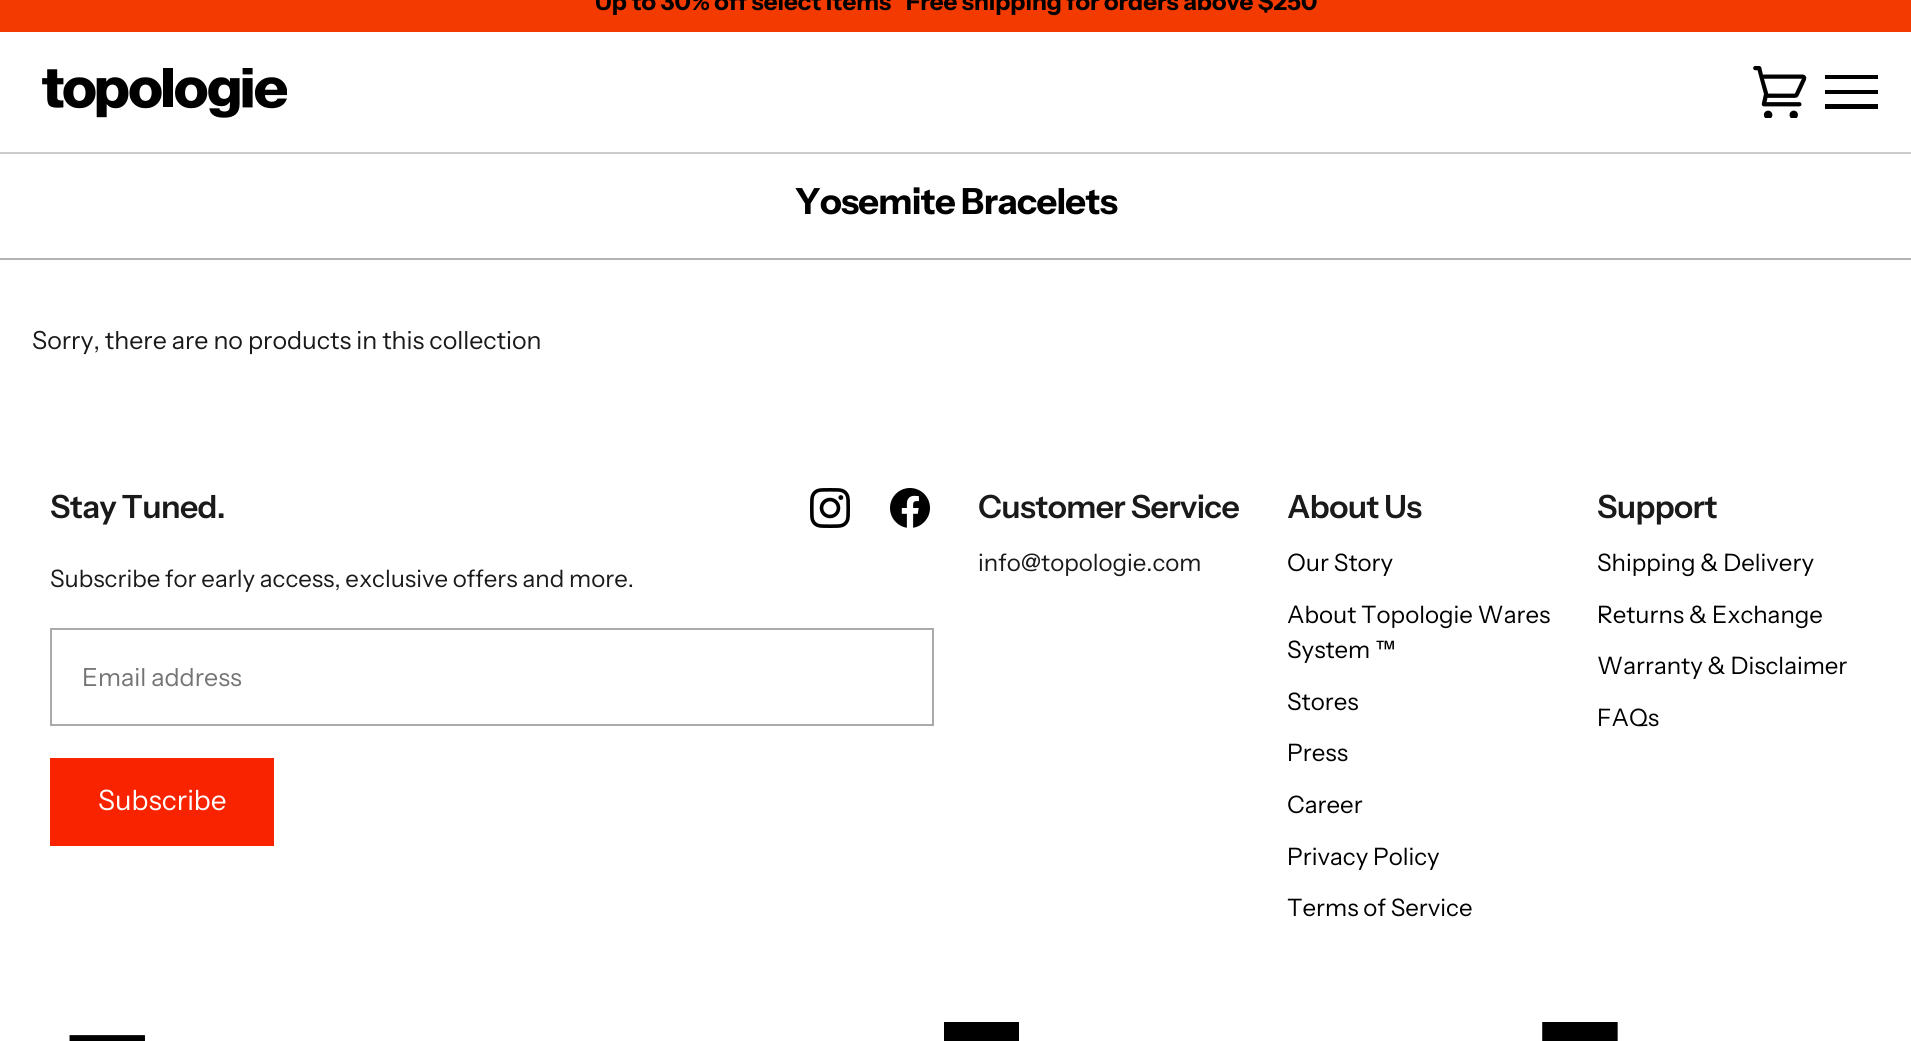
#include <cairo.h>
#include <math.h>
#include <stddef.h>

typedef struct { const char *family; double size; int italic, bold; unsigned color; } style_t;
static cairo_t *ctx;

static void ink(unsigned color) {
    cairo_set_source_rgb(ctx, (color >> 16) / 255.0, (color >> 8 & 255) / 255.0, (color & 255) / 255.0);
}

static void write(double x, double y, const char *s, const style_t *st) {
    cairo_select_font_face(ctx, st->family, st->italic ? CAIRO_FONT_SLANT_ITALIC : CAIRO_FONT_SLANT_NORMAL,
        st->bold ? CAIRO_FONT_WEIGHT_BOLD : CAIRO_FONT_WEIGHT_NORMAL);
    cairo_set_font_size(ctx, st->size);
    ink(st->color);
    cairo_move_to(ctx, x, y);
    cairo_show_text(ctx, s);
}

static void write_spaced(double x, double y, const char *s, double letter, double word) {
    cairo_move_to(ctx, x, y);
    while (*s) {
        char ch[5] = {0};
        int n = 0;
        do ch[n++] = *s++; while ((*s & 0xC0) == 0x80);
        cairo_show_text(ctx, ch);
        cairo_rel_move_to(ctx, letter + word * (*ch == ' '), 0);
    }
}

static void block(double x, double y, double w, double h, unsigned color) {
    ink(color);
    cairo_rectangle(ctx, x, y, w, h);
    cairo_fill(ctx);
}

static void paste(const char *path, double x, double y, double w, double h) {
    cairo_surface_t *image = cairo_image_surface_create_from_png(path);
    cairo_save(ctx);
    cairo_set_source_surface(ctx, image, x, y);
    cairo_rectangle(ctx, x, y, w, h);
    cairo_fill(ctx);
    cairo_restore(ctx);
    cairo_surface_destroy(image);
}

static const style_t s1 = {"Instrument Sans", 24, 0, 1, 0x000000};
static const style_t s2 = {"Instrument Sans", 24.95, 0, 0, 0x1a1a1a};
static const style_t s3 = {"Instrument Sans", 24, 0, 0, 0x1a1a1a};
static const style_t s4 = {"Instrument Sans", 24.95, 0, 0, 0x757575};
static const style_t s5 = {"Instrument Sans", 28, 0, 0, 0xffffff};
static const style_t s6 = {"Instrument Sans", 24, 0, 0, 0x000000};

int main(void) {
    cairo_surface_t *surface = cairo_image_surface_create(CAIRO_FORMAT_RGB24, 1911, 1041);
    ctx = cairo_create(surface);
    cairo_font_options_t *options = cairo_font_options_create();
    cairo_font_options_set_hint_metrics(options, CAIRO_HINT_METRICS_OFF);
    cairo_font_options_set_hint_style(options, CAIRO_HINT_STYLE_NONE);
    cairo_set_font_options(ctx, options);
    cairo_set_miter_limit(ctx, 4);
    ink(0xffffff);
    cairo_paint(ctx);
    block(0, 0, 1911, 32, 0xf33a00);
    write(595, 10, "Up to 30% off select items", &s1);
    write(906, 10, "Free shipping for orders above $250", &s1);
    block(0, 152, 1911, 2, 0xcccccc);
    paste("pic1.png", 42, 68, 245, 50);
    paste("pic2.png", 1753, 66, 54, 52);
    ink(0x000000);
    cairo_new_path(ctx);
    cairo_move_to(ctx, 1825, 75);
    cairo_line_to(ctx, 1878, 75);
    cairo_line_to(ctx, 1878, 79);
    cairo_line_to(ctx, 1825, 79);
    cairo_close_path(ctx);
    cairo_move_to(ctx, 1825, 90);
    cairo_line_to(ctx, 1878, 90);
    cairo_line_to(ctx, 1878, 94);
    cairo_line_to(ctx, 1825, 94);
    cairo_close_path(ctx);
    cairo_move_to(ctx, 1825, 104);
    cairo_line_to(ctx, 1878, 104);
    cairo_line_to(ctx, 1878, 109);
    cairo_line_to(ctx, 1825, 109);
    cairo_close_path(ctx);
    cairo_fill(ctx);
    block(0, 258, 1911, 2, 0xb3b3b3);
    cairo_set_font_size(ctx, 36);
    ink(0x000000);
    write_spaced(795, 214, "Yosemite Bracelets", -0.75, 0);
    write(32, 349, "Sorry, there are no products in this collection", &s2);
    cairo_select_font_face(ctx, "Instrument Sans SemiBold", CAIRO_FONT_SLANT_NORMAL, CAIRO_FONT_WEIGHT_NORMAL);
    cairo_set_font_size(ctx, 32);
    write_spaced(50, 518, "Stay Tuned.", -0.6, 0);
    paste("pic3.png", 810, 488, 40, 40);
    paste("pic4.png", 890, 488, 40, 40);
    write(50, 587, "Subscribe for early access, exclusive offers and more.", &s3);
    cairo_rectangle(ctx, 51, 629, 882, 96);
    ink(0xaaaaaa);
    cairo_stroke(ctx);
    write(82, 686, "Email address", &s4);
    block(50, 758, 224, 88, 0xf92300);
    write(98, 810, "Subscribe", &s5);
    cairo_select_font_face(ctx, "Instrument Sans SemiBold", CAIRO_FONT_SLANT_NORMAL, CAIRO_FONT_WEIGHT_NORMAL);
    cairo_set_font_size(ctx, 32);
    ink(0x1a1a1a);
    write_spaced(978, 518, "Customer Service", -0.6, 0);
    write(978, 571, "info@topologie.com", &s3);
    cairo_select_font_face(ctx, "Instrument Sans SemiBold", CAIRO_FONT_SLANT_NORMAL, CAIRO_FONT_WEIGHT_NORMAL);
    cairo_set_font_size(ctx, 32);
    write_spaced(1287, 518, "About Us", -0.6, 0);
    write(1287, 571, "Our Story", &s6);
    write(1287, 623, "About Topologie Wares", &s6);
    write(1287, 658, "System ™", &s6);
    write(1287, 710, "Stores", &s6);
    write(1287, 761, "Press", &s6);
    write(1287, 813, "Career", &s6);
    write(1287, 865, "Privacy Policy", &s6);
    write(1287, 916, "Terms of Service", &s6);
    cairo_select_font_face(ctx, "Instrument Sans SemiBold", CAIRO_FONT_SLANT_NORMAL, CAIRO_FONT_WEIGHT_NORMAL);
    cairo_set_font_size(ctx, 32);
    ink(0x1a1a1a);
    write_spaced(1597, 518, "Support", -0.6, 0);
    write(1597, 571, "Shipping & Delivery", &s6);
    write(1597, 623, "Returns & Exchange", &s6);
    write(1597, 674, "Warranty & Disclaimer", &s6);
    write(1597, 726, "FAQs", &s6);
    paste("pic5.png", 69, 1022, 1549, 19);
    cairo_surface_write_to_png(surface, "screenshot.png");
    cairo_font_options_destroy(options);
    cairo_destroy(ctx);
    cairo_surface_destroy(surface);
    return 0;
}
